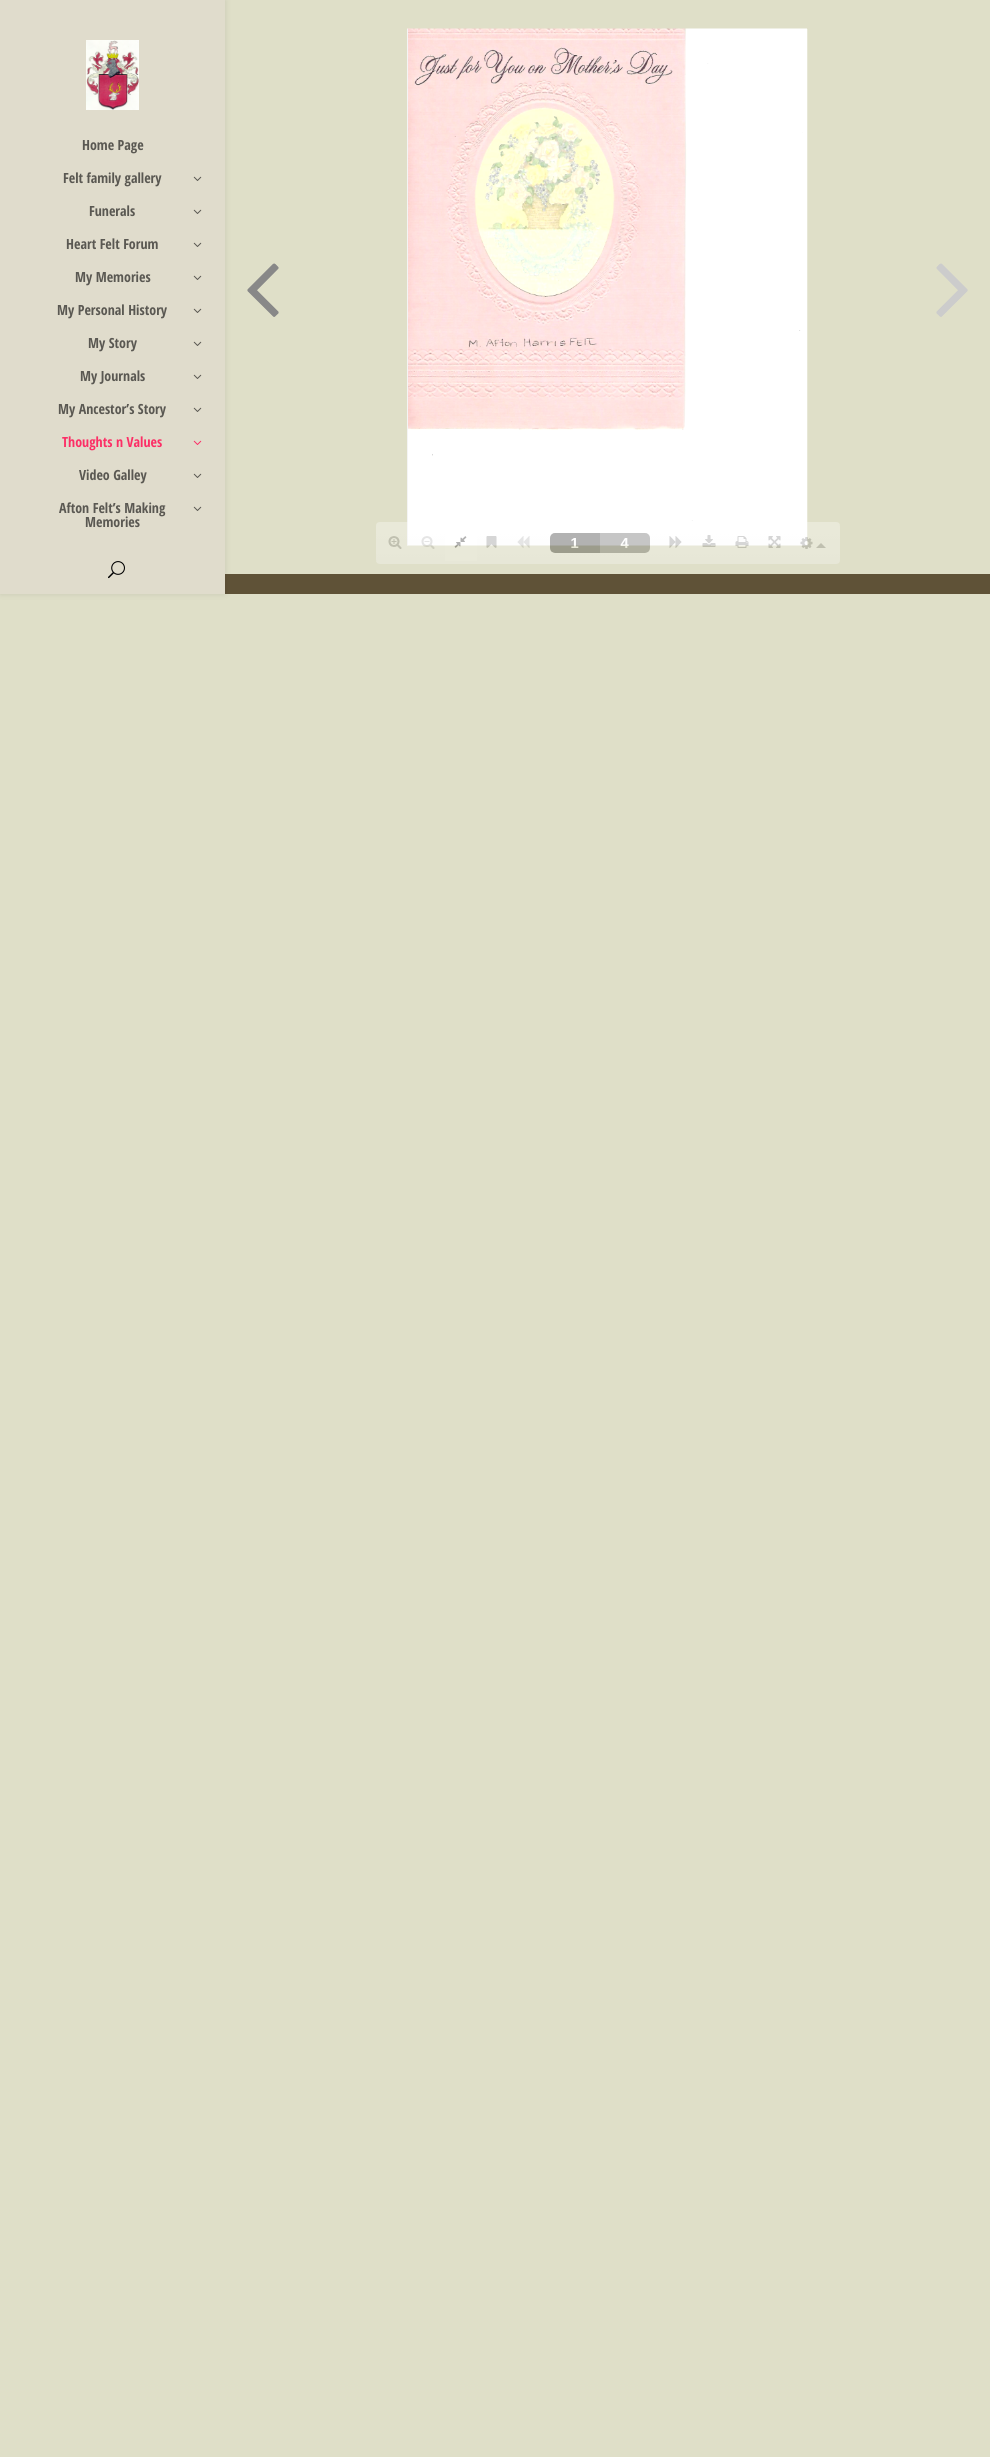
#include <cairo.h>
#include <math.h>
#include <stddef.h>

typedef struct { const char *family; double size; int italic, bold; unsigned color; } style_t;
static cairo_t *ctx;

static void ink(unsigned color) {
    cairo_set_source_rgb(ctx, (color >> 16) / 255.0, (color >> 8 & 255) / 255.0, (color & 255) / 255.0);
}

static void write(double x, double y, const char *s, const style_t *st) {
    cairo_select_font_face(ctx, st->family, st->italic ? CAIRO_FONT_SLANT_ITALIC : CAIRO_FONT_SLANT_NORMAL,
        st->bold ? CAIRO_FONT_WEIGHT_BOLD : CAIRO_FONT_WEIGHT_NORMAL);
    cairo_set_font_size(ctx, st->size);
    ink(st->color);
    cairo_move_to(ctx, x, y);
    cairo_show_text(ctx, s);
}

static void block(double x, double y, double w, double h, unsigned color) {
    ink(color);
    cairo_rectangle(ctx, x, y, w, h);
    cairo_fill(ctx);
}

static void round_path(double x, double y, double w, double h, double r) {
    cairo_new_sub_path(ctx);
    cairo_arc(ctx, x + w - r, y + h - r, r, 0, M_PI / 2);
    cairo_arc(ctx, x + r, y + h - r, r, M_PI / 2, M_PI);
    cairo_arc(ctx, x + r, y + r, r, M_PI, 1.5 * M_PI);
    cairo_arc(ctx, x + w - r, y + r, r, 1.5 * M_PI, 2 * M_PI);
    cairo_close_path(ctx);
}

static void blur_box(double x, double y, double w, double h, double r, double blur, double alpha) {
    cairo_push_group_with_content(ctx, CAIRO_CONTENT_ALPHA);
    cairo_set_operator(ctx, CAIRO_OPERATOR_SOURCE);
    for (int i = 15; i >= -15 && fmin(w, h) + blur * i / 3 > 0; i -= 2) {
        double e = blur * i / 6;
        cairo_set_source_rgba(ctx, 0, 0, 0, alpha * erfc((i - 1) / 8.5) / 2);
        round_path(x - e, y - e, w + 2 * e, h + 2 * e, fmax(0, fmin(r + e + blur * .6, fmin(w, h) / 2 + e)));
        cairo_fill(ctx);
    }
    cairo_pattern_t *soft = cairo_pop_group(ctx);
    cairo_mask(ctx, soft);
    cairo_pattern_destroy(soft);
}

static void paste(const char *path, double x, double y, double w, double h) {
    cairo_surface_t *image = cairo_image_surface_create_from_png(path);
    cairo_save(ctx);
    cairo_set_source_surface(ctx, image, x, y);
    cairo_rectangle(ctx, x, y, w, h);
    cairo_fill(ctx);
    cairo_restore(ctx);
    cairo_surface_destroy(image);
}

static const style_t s1 = {"Open Sans Condensed", 14, 0, 1, 0x5a5852};
static const style_t s2 = {"Open Sans Condensed", 14, 0, 1, 0xfc2f66};

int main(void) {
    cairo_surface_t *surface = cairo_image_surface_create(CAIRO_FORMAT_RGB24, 990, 2457);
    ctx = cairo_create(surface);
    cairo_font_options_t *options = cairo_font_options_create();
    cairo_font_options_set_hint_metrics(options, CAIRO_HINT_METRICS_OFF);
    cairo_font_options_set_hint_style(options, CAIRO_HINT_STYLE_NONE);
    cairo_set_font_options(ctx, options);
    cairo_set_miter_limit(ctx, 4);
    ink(0xdfdfc8);
    cairo_paint(ctx);
    block(225, 574, 765, 20, 0x5f5237);
    ink(0x000000);
    blur_box(0, 0, 225, 594, 0, 3.5, 0.1);
    block(0, 0, 225, 594, 0xe0dccc);
    paste("pic1.png", 86, 40, 53, 70);
    write(82, 150, "Home Page", &s1);
    write(63, 183, "Felt family gallery", &s1);
    paste("pic2.png", 193, 176, 9, 5);
    write(89, 216, "Funerals", &s1);
    paste("pic2.png", 193, 209, 9, 5);
    write(66, 249, "Heart Felt Forum", &s1);
    paste("pic2.png", 193, 242, 9, 5);
    write(75, 282, "My Memories", &s1);
    paste("pic2.png", 193, 275, 9, 5);
    write(57, 315, "My Personal History", &s1);
    paste("pic2.png", 193, 308, 9, 5);
    write(88, 348, "My Story", &s1);
    paste("pic2.png", 193, 341, 9, 5);
    write(80, 381, "My Journals", &s1);
    paste("pic2.png", 193, 374, 9, 5);
    write(58, 414, "My Ancestor’s Story", &s1);
    paste("pic2.png", 193, 407, 9, 5);
    write(62, 447, "Thoughts n Values", &s2);
    paste("pic3.png", 193, 440, 9, 5);
    write(79, 480, "Video Galley", &s1);
    paste("pic2.png", 193, 473, 9, 5);
    write(59, 513, "Afton Felt’s Making", &s1);
    paste("pic2.png", 193, 506, 9, 5);
    write(85, 527, "Memories", &s1);
    paste("pic4.png", 108, 561, 17, 18);
    paste("pic5.png", 247, 28, 721, 536);
    cairo_surface_write_to_png(surface, "screenshot.png");
    cairo_font_options_destroy(options);
    cairo_destroy(ctx);
    cairo_surface_destroy(surface);
    return 0;
}
